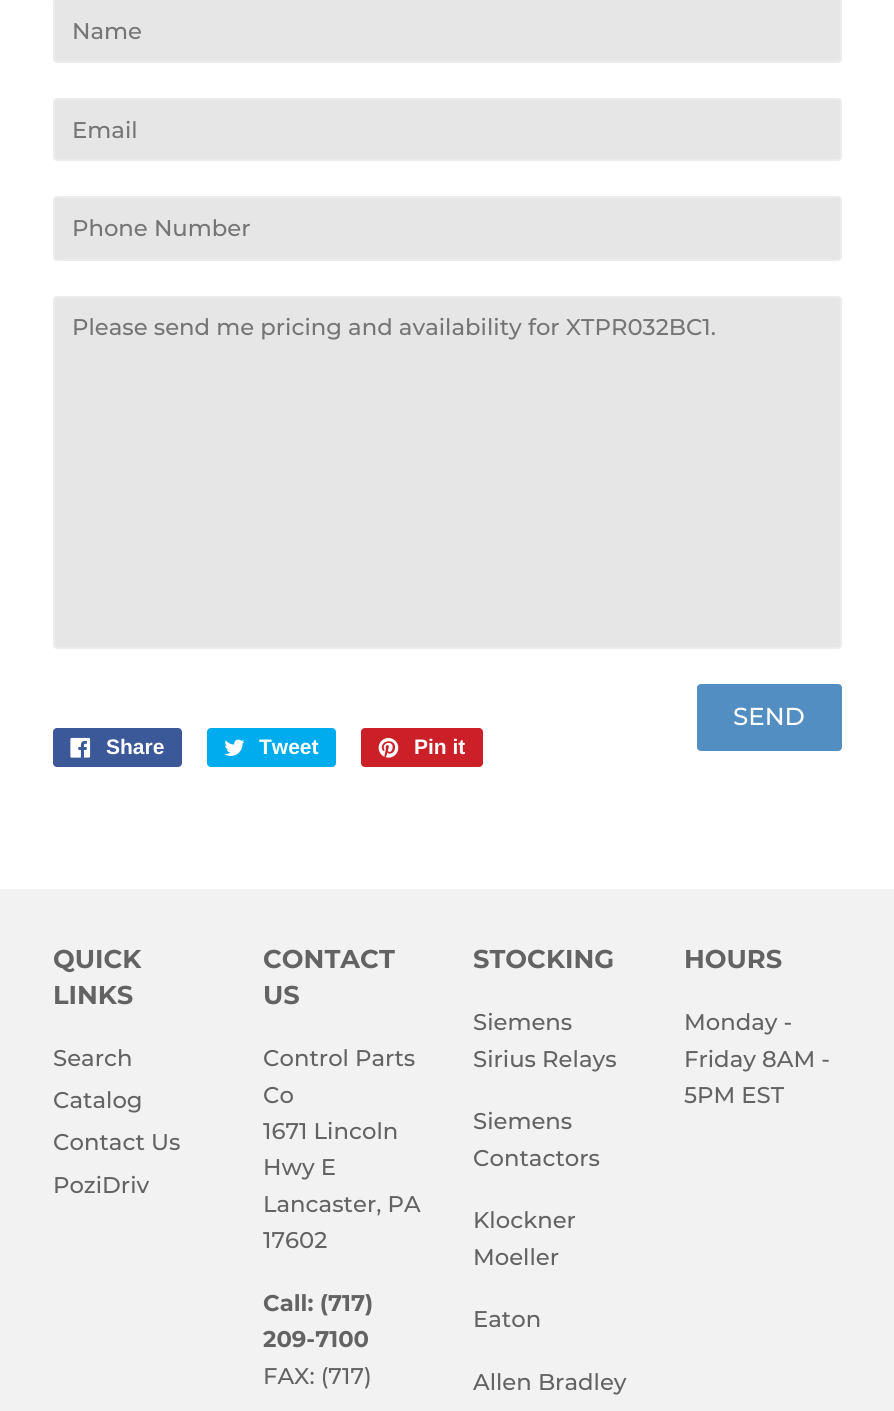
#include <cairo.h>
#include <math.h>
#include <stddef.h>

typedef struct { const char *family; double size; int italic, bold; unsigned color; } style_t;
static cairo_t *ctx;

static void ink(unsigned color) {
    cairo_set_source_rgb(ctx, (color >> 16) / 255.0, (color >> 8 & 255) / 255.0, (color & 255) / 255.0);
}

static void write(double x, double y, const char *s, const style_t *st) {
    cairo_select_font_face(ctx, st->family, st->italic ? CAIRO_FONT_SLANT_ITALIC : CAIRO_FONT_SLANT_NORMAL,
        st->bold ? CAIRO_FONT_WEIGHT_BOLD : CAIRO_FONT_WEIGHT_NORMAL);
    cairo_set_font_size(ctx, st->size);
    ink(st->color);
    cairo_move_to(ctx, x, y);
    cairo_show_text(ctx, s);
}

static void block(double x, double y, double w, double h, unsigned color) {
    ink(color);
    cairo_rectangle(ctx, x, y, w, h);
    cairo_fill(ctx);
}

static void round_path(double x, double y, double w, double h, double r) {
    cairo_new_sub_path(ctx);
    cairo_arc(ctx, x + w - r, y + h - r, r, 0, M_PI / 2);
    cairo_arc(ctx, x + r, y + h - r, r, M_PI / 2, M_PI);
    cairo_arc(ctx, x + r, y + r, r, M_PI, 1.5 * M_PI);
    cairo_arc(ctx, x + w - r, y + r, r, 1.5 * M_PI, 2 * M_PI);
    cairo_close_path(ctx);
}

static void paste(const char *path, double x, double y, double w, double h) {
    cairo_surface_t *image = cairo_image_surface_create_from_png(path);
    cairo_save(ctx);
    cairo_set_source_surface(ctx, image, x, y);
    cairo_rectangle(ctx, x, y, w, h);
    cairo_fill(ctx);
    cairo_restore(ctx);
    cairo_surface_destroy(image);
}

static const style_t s1 = {"Montserrat Medium", 22.75, 0, 0, 0x757575};
static const style_t s2 = {"Montserrat Medium", 24.5, 0, 0, 0xffffff};
static const style_t s3 = {"Liberation Sans", 21, 0, 1, 0xffffff};
static const style_t s4 = {"Montserrat", 25.75, 0, 1, 0x636363};
static const style_t s5 = {"Montserrat Medium", 22.75, 0, 0, 0x636363};
static const style_t s6 = {"Montserrat", 22.75, 0, 1, 0x636363};

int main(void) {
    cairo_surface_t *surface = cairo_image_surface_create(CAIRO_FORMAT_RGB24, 894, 1411);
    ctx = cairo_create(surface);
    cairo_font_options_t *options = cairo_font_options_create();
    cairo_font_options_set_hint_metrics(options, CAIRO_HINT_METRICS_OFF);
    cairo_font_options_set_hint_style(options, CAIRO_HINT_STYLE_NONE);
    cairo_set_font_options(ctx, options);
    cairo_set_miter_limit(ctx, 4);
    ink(0xffffff);
    cairo_paint(ctx);
    ink(0xe6e6e6);
    round_path(54, -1, 787, 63, 3);
    cairo_fill_preserve(ctx);
    ink(0xececec);
    cairo_stroke(ctx);
    write(72, 39, "Name", &s1);
    ink(0xe6e6e6);
    round_path(54, 99, 787, 61, 3);
    cairo_fill_preserve(ctx);
    ink(0xececec);
    cairo_stroke(ctx);
    write(72, 138, "Email", &s1);
    ink(0xe6e6e6);
    round_path(54, 197, 787, 63, 3);
    cairo_fill_preserve(ctx);
    ink(0xececec);
    cairo_stroke(ctx);
    write(72, 236, "Phone Number", &s1);
    ink(0xe6e6e6);
    round_path(54, 297, 787, 351, 3);
    cairo_fill_preserve(ctx);
    ink(0xececec);
    cairo_stroke(ctx);
    write(72, 335, "Please send me pricing and availability for XTPR032BC1.", &s1);
    ink(0x528ec1);
    round_path(697, 684, 145, 67, 4);
    cairo_fill(ctx);
    write(733, 725, "SEND", &s2);
    ink(0x3b5998);
    round_path(53, 728, 129, 39, 4);
    cairo_fill(ctx);
    paste("pic1.png", 70, 737, 21, 21);
    write(106, 754, "Share", &s3);
    ink(0x00aced);
    round_path(207, 728, 129, 39, 4);
    cairo_fill(ctx);
    paste("pic2.png", 224, 739, 21, 17);
    write(259, 754, "Tweet", &s3);
    ink(0xcb2027);
    round_path(361, 728, 122, 39, 4);
    cairo_fill(ctx);
    paste("pic3.png", 378, 738, 21, 20);
    write(414, 754, "Pin it", &s3);
    block(0, 889, 894, 522, 0xf2f2f2);
    write(53, 968, "QUICK", &s4);
    write(53, 1004, "LINKS", &s4);
    write(53, 1066, "Search", &s5);
    write(53, 1108, "Catalog", &s5);
    write(53, 1150, "Contact Us", &s5);
    write(53, 1193, "PoziDriv", &s5);
    write(263, 968, "CONTACT", &s4);
    write(263, 1004, "US", &s4);
    write(263, 1066, "Control Parts", &s5);
    write(263, 1103, "Co", &s5);
    write(263, 1139, "1671 Lincoln", &s5);
    write(263, 1175, "Hwy E", &s5);
    write(263, 1212, "Lancaster, PA", &s5);
    write(263, 1248, "17602", &s5);
    write(263, 1311, "Call: (717)", &s6);
    write(263, 1347, "209-7100", &s6);
    write(263, 1384, "FAX: (717)", &s5);
    write(473, 968, "STOCKING", &s4);
    write(473, 1030, "Siemens", &s5);
    write(473, 1067, "Sirius Relays", &s5);
    write(473, 1129, "Siemens", &s5);
    write(473, 1166, "Contactors", &s5);
    write(473, 1228, "Klockner", &s5);
    write(473, 1265, "Moeller", &s5);
    write(473, 1327, "Eaton", &s5);
    write(473, 1390, "Allen Bradley", &s5);
    write(684, 968, "HOURS", &s4);
    write(684, 1030, "Monday -", &s5);
    write(684, 1067, "Friday 8AM -", &s5);
    write(684, 1103, "5PM EST", &s5);
    cairo_surface_write_to_png(surface, "screenshot.png");
    cairo_font_options_destroy(options);
    cairo_destroy(ctx);
    cairo_surface_destroy(surface);
    return 0;
}
